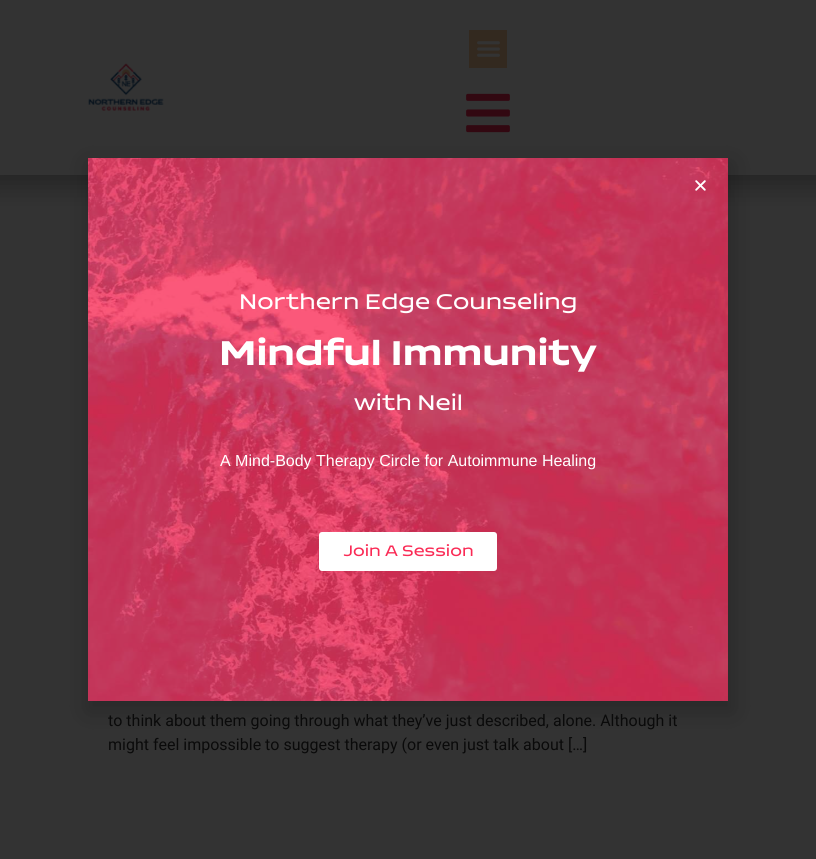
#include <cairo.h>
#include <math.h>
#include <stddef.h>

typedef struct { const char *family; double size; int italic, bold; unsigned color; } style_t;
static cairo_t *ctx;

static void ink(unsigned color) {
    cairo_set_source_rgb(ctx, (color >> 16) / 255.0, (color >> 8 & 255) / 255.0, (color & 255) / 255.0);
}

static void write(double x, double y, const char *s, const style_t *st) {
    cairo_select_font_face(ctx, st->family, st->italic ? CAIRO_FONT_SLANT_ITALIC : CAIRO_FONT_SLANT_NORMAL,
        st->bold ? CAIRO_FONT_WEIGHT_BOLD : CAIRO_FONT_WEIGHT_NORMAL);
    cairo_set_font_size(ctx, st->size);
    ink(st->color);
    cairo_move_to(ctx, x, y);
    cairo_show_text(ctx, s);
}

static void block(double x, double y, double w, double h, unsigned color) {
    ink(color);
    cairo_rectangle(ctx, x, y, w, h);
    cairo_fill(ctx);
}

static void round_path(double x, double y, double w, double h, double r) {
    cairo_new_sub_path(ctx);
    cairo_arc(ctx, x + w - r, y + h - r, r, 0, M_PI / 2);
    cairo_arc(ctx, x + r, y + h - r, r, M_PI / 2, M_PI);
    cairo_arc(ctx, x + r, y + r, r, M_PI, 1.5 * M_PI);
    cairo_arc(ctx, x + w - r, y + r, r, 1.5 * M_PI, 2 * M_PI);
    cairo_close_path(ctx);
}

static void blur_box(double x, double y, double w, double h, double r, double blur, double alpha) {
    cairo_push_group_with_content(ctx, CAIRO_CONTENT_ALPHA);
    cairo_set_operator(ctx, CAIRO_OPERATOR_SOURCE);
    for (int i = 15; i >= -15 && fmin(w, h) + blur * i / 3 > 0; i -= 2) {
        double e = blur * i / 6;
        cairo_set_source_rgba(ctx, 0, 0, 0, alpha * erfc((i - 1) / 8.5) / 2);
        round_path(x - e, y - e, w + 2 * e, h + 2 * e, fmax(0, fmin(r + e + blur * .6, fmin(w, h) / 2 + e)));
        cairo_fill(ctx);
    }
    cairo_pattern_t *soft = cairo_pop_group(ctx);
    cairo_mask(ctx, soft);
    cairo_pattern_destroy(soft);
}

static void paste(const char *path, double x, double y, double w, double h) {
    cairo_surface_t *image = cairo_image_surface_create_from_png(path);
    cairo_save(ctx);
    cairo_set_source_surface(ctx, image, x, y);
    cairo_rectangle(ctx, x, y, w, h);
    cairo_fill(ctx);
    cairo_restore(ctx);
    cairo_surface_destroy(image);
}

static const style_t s1 = {"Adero", 21, 0, 0, 0xffffff};
static const style_t s2 = {"Adero", 34, 0, 1, 0xffffff};
static const style_t s3 = {"Liberation Sans", 16, 0, 0, 0xffffff};
static const style_t s4 = {"Adero", 15, 0, 0, 0xfa2a55};
static const style_t s5 = {"Roboto", 16, 0, 0, 0x0a0a0a};

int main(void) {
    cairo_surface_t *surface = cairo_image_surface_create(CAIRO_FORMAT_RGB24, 816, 859);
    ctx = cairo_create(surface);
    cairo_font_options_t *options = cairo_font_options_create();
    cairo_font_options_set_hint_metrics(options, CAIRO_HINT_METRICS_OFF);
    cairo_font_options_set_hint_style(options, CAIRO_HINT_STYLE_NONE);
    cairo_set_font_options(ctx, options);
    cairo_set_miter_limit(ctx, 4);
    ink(0x333333);
    cairo_paint(ctx);
    cairo_save(ctx);
    cairo_rectangle(ctx, 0, 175, 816, 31);
    cairo_clip(ctx);
    ink(0x000000);
    blur_box(-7, -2, 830, 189, 0, 13, 0.29);
    cairo_restore(ctx);
    paste("pic1.png", 88, 63, 76, 48);
    block(469, 30, 38, 38, 0x33291f);
    paste("pic2.png", 477, 41, 23, 16);
    paste("pic3.png", 466, 93, 44, 40);
    ink(0x000000);
    blur_box(87, 163, 646, 549, 0, 11.5, 0.2);
    paste("pic5.png", 88, 158, 640, 543);
    paste("pic4.png", 695, 180, 11, 11);
    write(239, 309, "Northern Edge Counseling", &s1);
    write(219, 365, "Mindful Immunity", &s2);
    write(354, 410, "with Neil", &s1);
    write(220, 466, "A Mind-Body Therapy Circle for Autoimmune Healing", &s3);
    round_path(319, 532, 178, 39, 3);
    cairo_fill(ctx);
    write(343, 556, "Join A Session", &s4);
    write(108, 726, "to think about them going through what they’ve just described, alone. Although it", &s5);
    write(108, 750, "might feel impossible to suggest therapy (or even just talk about […]", &s5);
    cairo_surface_write_to_png(surface, "screenshot.png");
    cairo_font_options_destroy(options);
    cairo_destroy(ctx);
    cairo_surface_destroy(surface);
    return 0;
}
